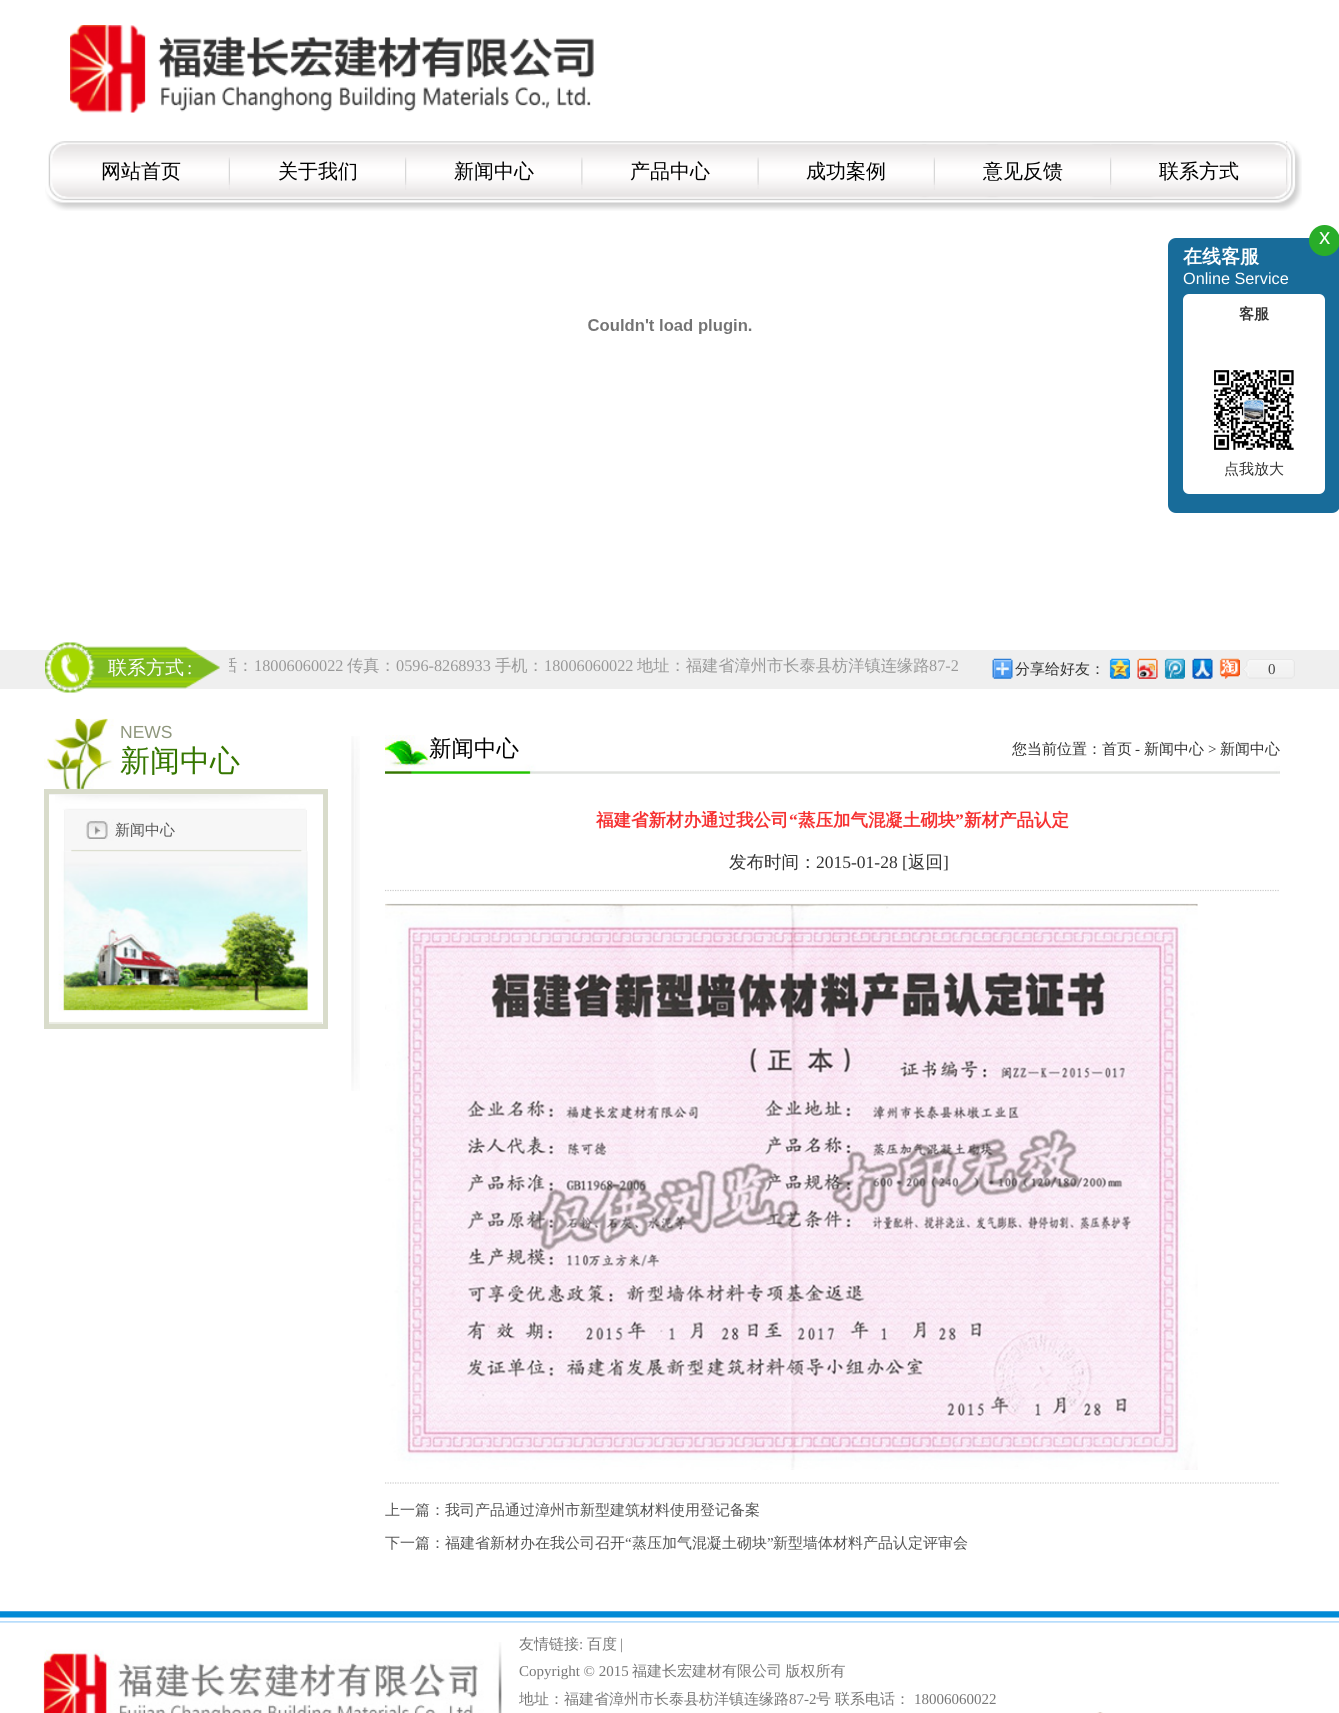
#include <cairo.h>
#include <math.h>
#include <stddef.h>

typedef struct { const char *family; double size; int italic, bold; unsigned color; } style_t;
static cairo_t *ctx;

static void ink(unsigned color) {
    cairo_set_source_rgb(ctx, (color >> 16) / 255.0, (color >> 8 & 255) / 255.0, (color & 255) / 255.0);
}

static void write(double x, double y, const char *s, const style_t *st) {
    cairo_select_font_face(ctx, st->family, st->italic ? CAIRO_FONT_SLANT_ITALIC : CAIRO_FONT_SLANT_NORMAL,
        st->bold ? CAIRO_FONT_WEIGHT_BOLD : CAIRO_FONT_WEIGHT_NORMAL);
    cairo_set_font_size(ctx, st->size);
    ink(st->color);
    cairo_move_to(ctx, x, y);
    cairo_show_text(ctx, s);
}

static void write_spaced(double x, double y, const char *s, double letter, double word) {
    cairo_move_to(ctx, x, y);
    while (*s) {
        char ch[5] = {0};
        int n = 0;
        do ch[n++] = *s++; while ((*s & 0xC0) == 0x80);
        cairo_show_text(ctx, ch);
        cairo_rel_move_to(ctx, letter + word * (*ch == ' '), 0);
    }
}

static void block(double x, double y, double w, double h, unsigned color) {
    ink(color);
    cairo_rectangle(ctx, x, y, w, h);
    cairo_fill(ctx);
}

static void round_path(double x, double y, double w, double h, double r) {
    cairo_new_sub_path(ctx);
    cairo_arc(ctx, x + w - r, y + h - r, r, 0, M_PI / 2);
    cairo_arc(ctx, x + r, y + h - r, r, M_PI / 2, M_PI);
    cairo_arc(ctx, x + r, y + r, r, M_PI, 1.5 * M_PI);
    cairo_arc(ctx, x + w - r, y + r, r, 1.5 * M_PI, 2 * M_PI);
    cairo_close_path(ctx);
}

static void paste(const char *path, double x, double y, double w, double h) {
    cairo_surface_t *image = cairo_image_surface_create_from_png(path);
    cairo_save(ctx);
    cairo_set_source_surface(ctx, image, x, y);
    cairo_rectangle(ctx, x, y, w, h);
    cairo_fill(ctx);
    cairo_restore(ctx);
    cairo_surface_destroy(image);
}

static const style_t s1 = {"WenQuanYi Zen Hei Medium", 20, 0, 0, 0x000000};
static const style_t s2 = {"WenQuanYi Zen Hei Medium", 19, 0, 0, 0xffffff};
static const style_t s3 = {"Liberation Serif", 19, 0, 0, 0xffffff};
static const style_t s4 = {"WenQuanYi Zen Hei Medium", 16.25, 0, 0, 0x999999};
static const style_t s5 = {"Liberation Serif", 16.25, 0, 0, 0x999999};
static const style_t s6 = {"WenQuanYi Zen Hei Medium", 15, 0, 0, 0x333333};
static const style_t s7 = {"Liberation Serif", 15, 0, 0, 0x454545};
static const style_t s8 = {"Liberation Sans", 17.5, 0, 0, 0x8e967c};
static const style_t s9 = {"WenQuanYi Zen Hei Medium", 30, 0, 0, 0x357600};
static const style_t s10 = {"WenQuanYi Zen Hei Medium", 15, 0, 0, 0x535353};
static const style_t s11 = {"WenQuanYi Zen Hei Medium", 22.5, 0, 0, 0x000000};
static const style_t s12 = {"Liberation Serif", 15, 0, 0, 0x333333};
static const style_t s13 = {"WenQuanYi Zen Hei", 17.5, 0, 1, 0xf63131};
static const style_t s14 = {"Liberation Serif", 17.5, 0, 1, 0xf63131};
static const style_t s15 = {"WenQuanYi Zen Hei Medium", 17.5, 0, 0, 0x333333};
static const style_t s16 = {"Liberation Serif", 17.5, 0, 0, 0x333333};
static const style_t s17 = {"Liberation Serif", 15, 0, 0, 0x535353};
static const style_t s18 = {"WenQuanYi Zen Hei Medium", 15, 0, 0, 0x777777};
static const style_t s19 = {"Liberation Serif", 15, 0, 0, 0x777777};
static const style_t s20 = {"Liberation Sans", 22.5, 0, 0, 0xffffff};
static const style_t s21 = {"WenQuanYi Zen Hei", 19, 0, 1, 0xffffff};
static const style_t s22 = {"Liberation Sans", 16.25, 0, 0, 0xffffff};
static const style_t s23 = {"WenQuanYi Zen Hei", 15, 0, 1, 0x333333};

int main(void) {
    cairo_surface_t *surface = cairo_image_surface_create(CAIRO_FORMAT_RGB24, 1339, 1713);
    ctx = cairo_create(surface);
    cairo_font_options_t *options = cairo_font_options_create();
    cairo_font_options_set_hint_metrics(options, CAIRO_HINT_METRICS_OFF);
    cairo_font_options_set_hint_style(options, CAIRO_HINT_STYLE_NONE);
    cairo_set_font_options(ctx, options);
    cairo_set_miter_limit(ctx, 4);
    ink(0xffffff);
    cairo_paint(ctx);
    block(0, 650, 1339, 39, 0xefefef);
    paste("pic1.png", 70, 25, 524, 88);
    paste("pic2.png", 45, 141, 1257, 70);
    paste("pic3.png", 228, 157, 2, 33);
    write(101, 178, "网站首页", &s1);
    paste("pic4.png", 405, 157, 2, 33);
    write(278, 178, "关于我们", &s1);
    paste("pic5.png", 581, 157, 2, 32);
    write(454, 178, "新闻中心", &s1);
    paste("pic6.png", 757, 157, 2, 32);
    write(630, 178, "产品中心", &s1);
    paste("pic3.png", 933, 157, 2, 33);
    write(806, 178, "成功案例", &s1);
    paste("pic7.png", 1110, 144, 2, 46);
    write(983, 178, "意见反馈", &s1);
    paste("pic8.png", 1286, 141, 2, 52);
    write(1159, 178, "联系方式", &s1);
    paste("pic9.png", 588, 319, 164, 15);
    paste("pic10.png", 45, 642, 175, 51);
    cairo_save(ctx);
    cairo_rectangle(ctx, 108, 643, 100, 50);
    cairo_clip(ctx);
    write(108, 674, "联系方式", &s2);
    cairo_restore(ctx);
    write(187, 674, ":", &s3);
    cairo_save(ctx);
    cairo_rectangle(ctx, 229, 643, 737, 47);
    cairo_clip(ctx);
    write(221, 671, "话：", &s4);
    cairo_restore(ctx);
    write(254, 671, "18006060022", &s5);
    write(347, 671, "传真：", &s4);
    write(396, 671, "0596-8268933", &s5);
    write(495, 671, "手机：", &s4);
    write(544, 671, "18006060022", &s5);
    write(637, 671, "地址：福建省漳州市长泰县枋洋镇连缘路", &s4);
    write(929, 671, "87-2", &s5);
    paste("pic11.png", 992, 658, 21, 21);
    write(1015, 674, "分享给好友：", &s6);
    paste("pic12.png", 1109, 658, 21, 21);
    paste("pic13.png", 1137, 658, 21, 21);
    paste("pic14.png", 1164, 658, 21, 21);
    paste("pic15.png", 1192, 658, 21, 21);
    paste("pic16.png", 1219, 658, 21, 21);
    paste("pic17.png", 1242, 659, 53, 20);
    write(1268, 674, "0", &s7);
    paste("pic18.png", 44, 718, 70, 71);
    write(120, 738, "NEWS", &s8);
    write(120, 771, "新闻中心", &s9);
    paste("pic19.png", 55, 795, 251, 15);
    cairo_rectangle(ctx, 46.5, 791.5, 279, 235);
    ink(0xd9dccb);
    cairo_set_line_width(ctx, 5);
    cairo_stroke(ctx);
    paste("pic20.png", 49, 851, 274, 173);
    block(49, 794, 274, 1, 0xf4f4f4);
    paste("pic21.png", 65, 810, 241, 42);
    block(306, 810, 1, 41, 0xf4f4f4);
    block(64, 810, 1, 41, 0xf4f4f4);
    write(115, 835, "新闻中心", &s10);
    paste("pic22.png", 351, 736, 9, 355);
    paste("pic23.png", 385, 735, 895, 39);
    write(429, 756, "新闻中心", &s11);
    write(1012, 754, "您当前位置：首页", &s6);
    write(1135, 754, "-", &s12);
    write(1144, 754, "新闻中心", &s6);
    write(1208, 754, ">", &s12);
    write(1220, 754, "新闻中心", &s6);
    write(596, 826, "福建省新材办通过我公司", &s13);
    write(789, 826, "“", &s14);
    write(798, 826, "蒸压加气混凝土砌块", &s13);
    write(955, 826, "”", &s14);
    write(964, 826, "新材产品认定", &s13);
    cairo_new_path(ctx);
    cairo_move_to(ctx, 385, 890.5);
    cairo_line_to(ctx, 1280, 890.5);
    ink(0xcccccc);
    cairo_set_line_width(ctx, 1.2);
    cairo_set_dash(ctx, (double[]){1.25, 1.25}, 2, 0);
    cairo_stroke(ctx);
    write(729, 868, "发布时间：", &s15);
    write(816, 868, "2015-01-28 [", &s16);
    write(908, 868, "返回", &s15);
    write(943, 868, "]", &s16);
    paste("pic24.png", 385, 903, 813, 567);
    cairo_new_path(ctx);
    cairo_move_to(ctx, 385, 1483);
    cairo_line_to(ctx, 1280, 1483);
    ink(0xcccccc);
    cairo_stroke(ctx);
    write(385, 1515, "上一篇：我司产品通过漳州市新型建筑材料使用登记备案", &s10);
    write(385, 1548, "下一篇：福建省新材办在我公司召开", &s10);
    write(625, 1548, "“", &s17);
    write(632, 1548, "蒸压加气混凝土砌块", &s10);
    write(767, 1548, "”", &s17);
    write(773, 1548, "新型墙体材料产品认定评审会", &s10);
    paste("pic25.png", 0, 1611, 1339, 12);
    paste("pic26.png", 43, 1642, 459, 71);
    write(519, 1649, "友情链接", &s18);
    write(579, 1649, ":", &s19);
    write(587, 1649, "百度", &s18);
    write(620, 1649, "|", &s19);
    write(519, 1676, "Copyright © 2015", &s19);
    cairo_select_font_face(ctx, "WenQuanYi Zen Hei Medium", CAIRO_FONT_SLANT_NORMAL, CAIRO_FONT_WEIGHT_NORMAL);
    write_spaced(632, 1676, "福建长宏建材有限公司 版权所有", 0, -1);
    write(519, 1704, "地址：福建省漳州市长泰县枋洋镇连缘路", &s18);
    write(789, 1704, "87-2", &s19);
    write(816, 1704, "号", &s18);
    write(835, 1704, "联系电话：", &s18);
    write(914, 1704, "18006060022", &s19);
    paste("pic27.png", 1097, 1712, 6, 1);
    ink(0x186c9a);
    round_path(1168, 238, 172, 275, 8);
    cairo_fill(ctx);
    ink(0x29ad29);
    cairo_arc(ctx, 1324.5, 240.5, 15.5, 0, 2 * M_PI);
    cairo_fill(ctx);
    write(1319, 244, "x", &s20);
    write(1183, 263, "在线客服", &s21);
    write(1183, 284, "Online Service", &s22);
    round_path(1183, 294, 142, 200, 6);
    cairo_fill(ctx);
    write(1239, 319, "客服", &s23);
    paste("pic28.png", 1207, 370, 87, 80);
    write(1224, 474, "点我放大", &s6);
    cairo_surface_write_to_png(surface, "screenshot.png");
    cairo_font_options_destroy(options);
    cairo_destroy(ctx);
    cairo_surface_destroy(surface);
    return 0;
}
